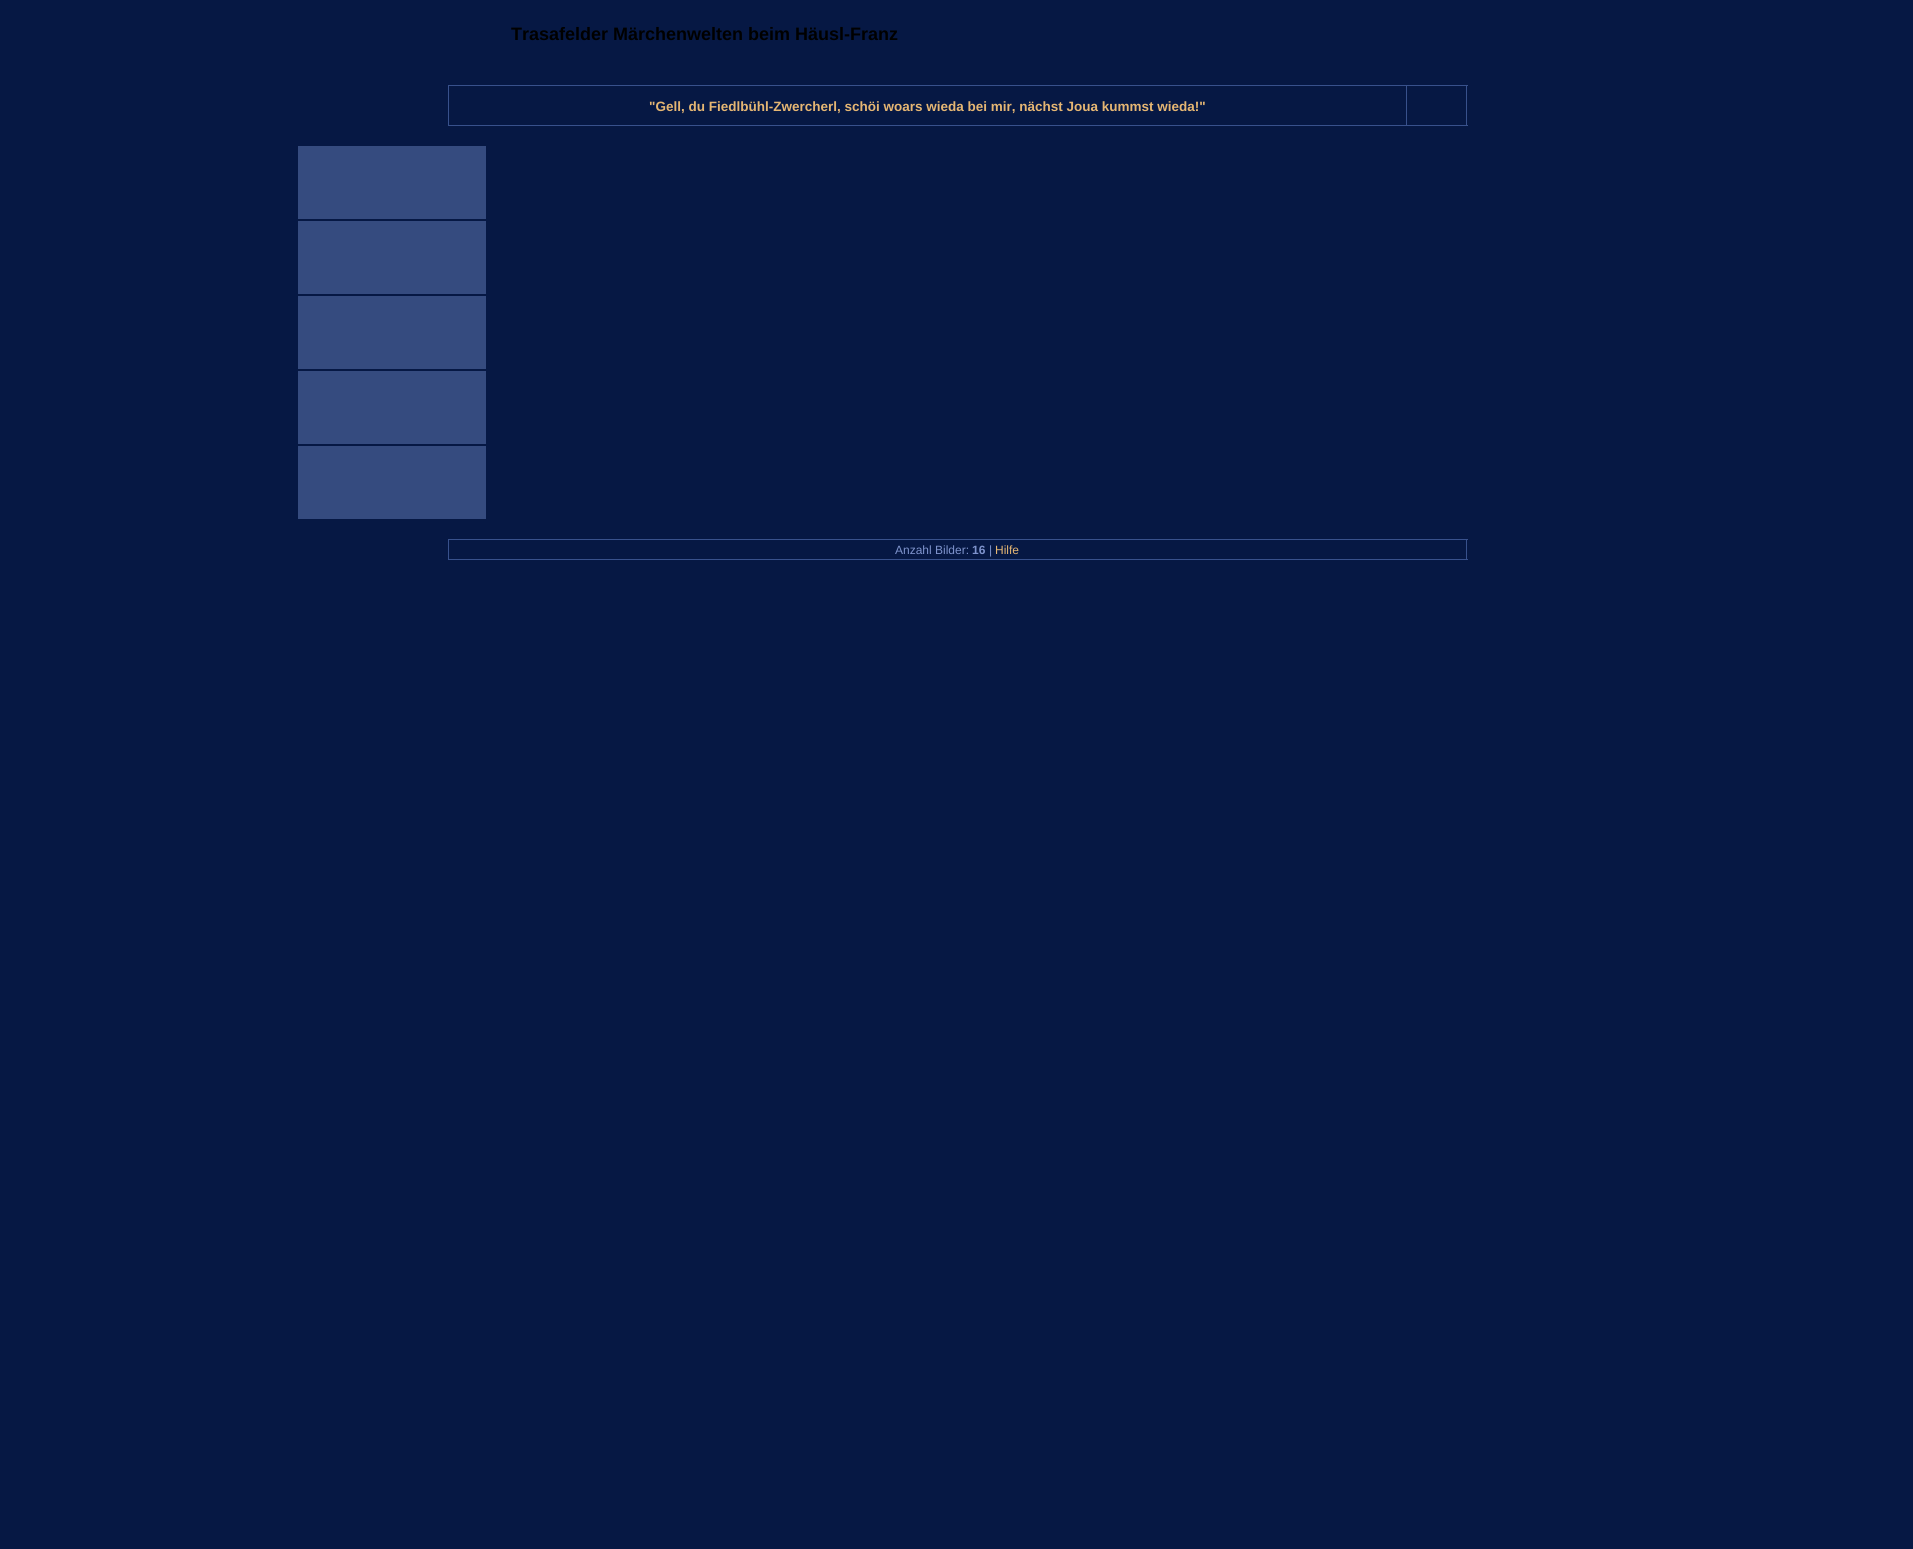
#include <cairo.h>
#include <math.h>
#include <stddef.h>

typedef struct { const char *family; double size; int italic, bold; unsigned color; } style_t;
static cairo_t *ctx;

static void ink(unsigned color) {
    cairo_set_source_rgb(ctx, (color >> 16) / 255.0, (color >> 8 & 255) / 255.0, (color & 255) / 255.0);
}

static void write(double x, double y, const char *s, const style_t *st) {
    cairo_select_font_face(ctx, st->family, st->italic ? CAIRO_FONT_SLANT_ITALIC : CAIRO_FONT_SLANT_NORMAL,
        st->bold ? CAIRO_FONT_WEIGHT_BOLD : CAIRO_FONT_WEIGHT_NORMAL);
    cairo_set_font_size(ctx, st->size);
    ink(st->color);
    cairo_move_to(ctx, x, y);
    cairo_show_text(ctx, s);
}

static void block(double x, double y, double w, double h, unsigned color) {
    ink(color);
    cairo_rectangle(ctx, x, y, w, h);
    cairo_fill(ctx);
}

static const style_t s1 = {"Liberation Sans", 18, 0, 1, 0x000000};
static const style_t s2 = {"Liberation Sans", 13.5, 0, 1, 0xe5b673};
static const style_t s3 = {"Liberation Sans", 12, 0, 0, 0x7e93cc};
static const style_t s4 = {"Liberation Sans", 12, 0, 1, 0x7e93cc};
static const style_t s5 = {"Liberation Sans", 12, 0, 0, 0xe5b673};

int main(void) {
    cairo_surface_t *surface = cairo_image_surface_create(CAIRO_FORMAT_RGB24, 1913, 1549);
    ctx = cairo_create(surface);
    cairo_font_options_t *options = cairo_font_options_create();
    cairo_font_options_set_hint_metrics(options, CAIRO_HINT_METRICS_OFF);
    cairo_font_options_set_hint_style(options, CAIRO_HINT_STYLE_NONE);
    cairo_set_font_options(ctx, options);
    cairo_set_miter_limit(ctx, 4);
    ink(0x061844);
    cairo_paint(ctx);
    write(511, 40, "Trasafelder Märchenwelten beim Häusl-Franz", &s1);
    block(1406, 85, 62, 1, 0x38518c);
    block(1466, 85, 1, 41, 0x38518c);
    block(1406, 125, 62, 1, 0x38518c);
    block(1406, 85, 1, 41, 0x38518c);
    block(448, 85, 960, 1, 0x38518c);
    block(448, 125, 960, 1, 0x38518c);
    block(448, 85, 1, 41, 0x38518c);
    write(649, 111, "\"Gell, du Fiedlbühl-Zwercherl, schöi woars wieda bei mir, nächst Joua kummst wieda!\"", &s2);
    block(298, 146, 188, 73, 0x354b7f);
    block(298, 221, 188, 73, 0x354b7f);
    block(298, 296, 188, 73, 0x354b7f);
    block(298, 371, 188, 73, 0x354b7f);
    block(298, 446, 188, 73, 0x354b7f);
    block(448, 539, 1020, 1, 0x38518c);
    block(1466, 539, 1, 21, 0x38518c);
    block(448, 559, 1020, 1, 0x38518c);
    block(448, 539, 1, 21, 0x38518c);
    write(895, 554, "Anzahl Bilder:", &s3);
    write(972, 554, "16", &s4);
    write(989, 554, "|", &s3);
    write(995, 554, "Hilfe", &s5);
    cairo_surface_write_to_png(surface, "screenshot.png");
    cairo_font_options_destroy(options);
    cairo_destroy(ctx);
    cairo_surface_destroy(surface);
    return 0;
}
